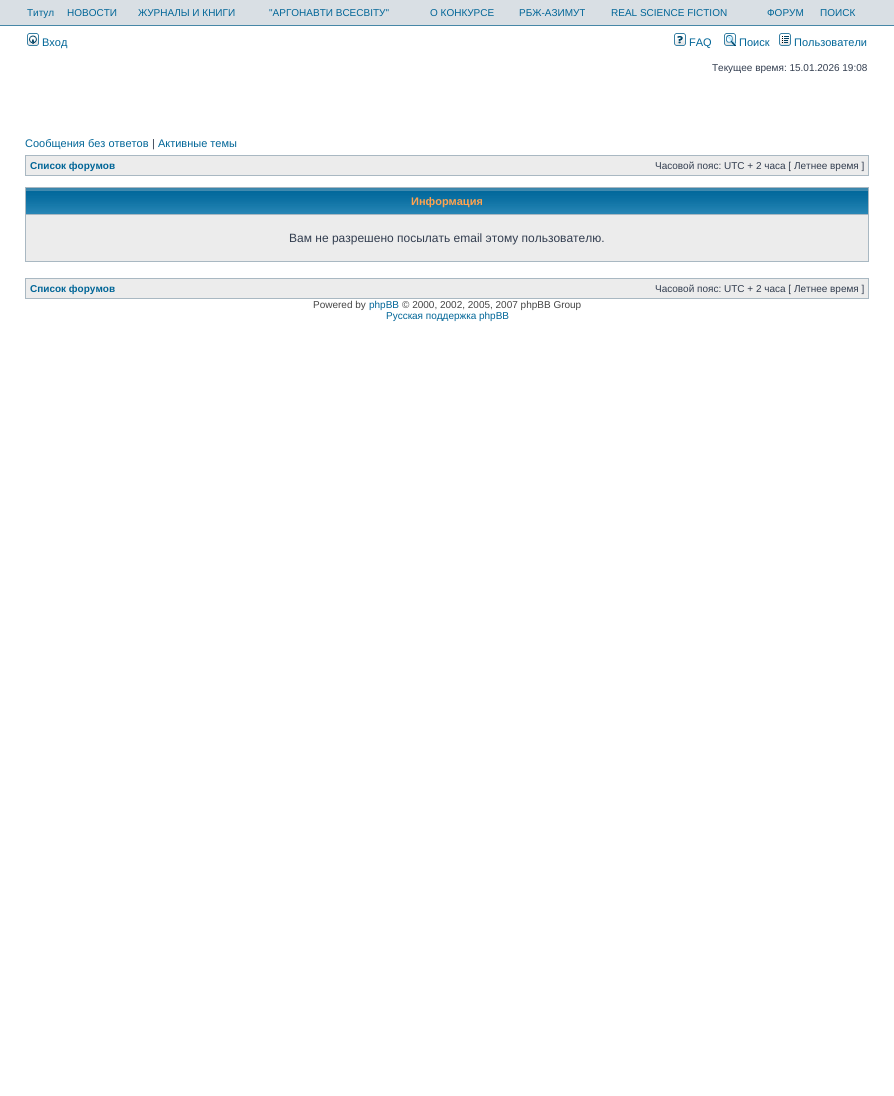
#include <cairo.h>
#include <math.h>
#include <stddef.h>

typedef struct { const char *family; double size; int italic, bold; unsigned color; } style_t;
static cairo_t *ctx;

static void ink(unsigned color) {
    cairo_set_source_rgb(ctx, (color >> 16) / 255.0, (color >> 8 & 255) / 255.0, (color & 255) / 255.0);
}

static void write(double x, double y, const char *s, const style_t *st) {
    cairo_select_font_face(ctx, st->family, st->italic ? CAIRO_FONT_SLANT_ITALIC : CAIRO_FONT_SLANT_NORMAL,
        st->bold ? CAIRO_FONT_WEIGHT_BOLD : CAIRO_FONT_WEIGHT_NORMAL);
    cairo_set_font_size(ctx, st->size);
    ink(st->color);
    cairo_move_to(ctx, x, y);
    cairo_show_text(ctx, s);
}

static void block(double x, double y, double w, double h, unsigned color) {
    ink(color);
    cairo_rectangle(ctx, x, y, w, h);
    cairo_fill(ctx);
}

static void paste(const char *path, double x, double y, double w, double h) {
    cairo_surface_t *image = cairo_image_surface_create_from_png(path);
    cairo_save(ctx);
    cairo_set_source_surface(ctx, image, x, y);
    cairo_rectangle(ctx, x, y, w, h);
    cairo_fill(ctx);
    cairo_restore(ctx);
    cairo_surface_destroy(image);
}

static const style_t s1 = {"Liberation Sans", 10, 0, 0, 0x006597};
static const style_t s2 = {"Liberation Sans", 11, 0, 0, 0x006597};
static const style_t s3 = {"Liberation Sans", 10, 0, 0, 0x323d4f};
static const style_t s4 = {"Liberation Sans", 11, 0, 0, 0x323d4f};
static const style_t s5 = {"Liberation Sans", 10, 0, 1, 0x006597};
static const style_t s6 = {"Liberation Sans", 11, 0, 1, 0xffa34f};
static const style_t s7 = {"Liberation Sans", 12, 0, 0, 0x323d4f};
static const style_t s8 = {"Liberation Sans", 10, 0, 0, 0x444444};

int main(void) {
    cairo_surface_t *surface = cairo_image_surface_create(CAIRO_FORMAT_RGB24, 894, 1096);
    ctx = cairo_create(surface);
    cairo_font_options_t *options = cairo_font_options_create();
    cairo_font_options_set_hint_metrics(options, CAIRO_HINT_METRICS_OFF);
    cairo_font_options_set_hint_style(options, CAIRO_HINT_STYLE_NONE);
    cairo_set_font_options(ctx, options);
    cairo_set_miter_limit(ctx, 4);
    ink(0xffffff);
    cairo_paint(ctx);
    block(0, 0, 894, 25, 0xd9dfe4);
    block(0, 25, 894, 1, 0x4787a7);
    write(27, 16, "Титул", &s1);
    write(67, 16, "НОВОСТИ", &s1);
    write(138, 16, "ЖУРНАЛЫ И КНИГИ", &s1);
    write(269, 16, "\"АРГОНАВТИ ВСЕСВІТУ\"", &s1);
    write(430, 16, "О КОНКУРСЕ", &s1);
    write(519, 16, "РБЖ-АЗИМУТ", &s1);
    write(611, 16, "REAL SCIENCE FICTION", &s1);
    write(767, 16, "ФОРУМ", &s1);
    write(820, 16, "ПОИСК", &s1);
    paste("pic1.png", 27, 33, 12, 13);
    write(42, 46, "Вход", &s2);
    paste("pic2.png", 674, 33, 12, 13);
    write(689, 46, "FAQ", &s2);
    paste("pic3.png", 724, 33, 12, 13);
    write(739, 46, "Поиск", &s2);
    paste("pic4.png", 779, 33, 12, 13);
    write(794, 46, "Пользователи", &s2);
    write(712, 71, "Текущее время: 15.01.2026 19:08", &s3);
    write(25, 147, "Сообщения без ответов", &s2);
    write(152, 147, "|", &s4);
    write(158, 147, "Активные темы", &s2);
    block(25, 155, 844, 21, 0xa9b8c2);
    block(26, 156, 842, 19, 0xececec);
    write(30, 169, "Список форумов", &s5);
    write(655, 169, "Часовой пояс: UTC + 2 часа [ Летнее время ]", &s3);
    block(25, 187, 844, 75, 0xa9b8c2);
    paste("pic5.png", 26, 188, 842, 26);
    write(411, 205, "Информация", &s6);
    block(26, 215, 842, 46, 0xececec);
    write(289, 242, "Вам не разрешено посылать email этому пользователю.", &s7);
    block(25, 278, 844, 21, 0xa9b8c2);
    block(26, 279, 842, 19, 0xececec);
    write(30, 292, "Список форумов", &s5);
    write(655, 292, "Часовой пояс: UTC + 2 часа [ Летнее время ]", &s3);
    write(313, 308, "Powered by", &s8);
    write(369, 308, "phpBB", &s1);
    write(402, 308, "© 2000, 2002, 2005, 2007 phpBB Group", &s8);
    write(386, 319, "Русская поддержка phpBB", &s1);
    cairo_surface_write_to_png(surface, "screenshot.png");
    cairo_font_options_destroy(options);
    cairo_destroy(ctx);
    cairo_surface_destroy(surface);
    return 0;
}
